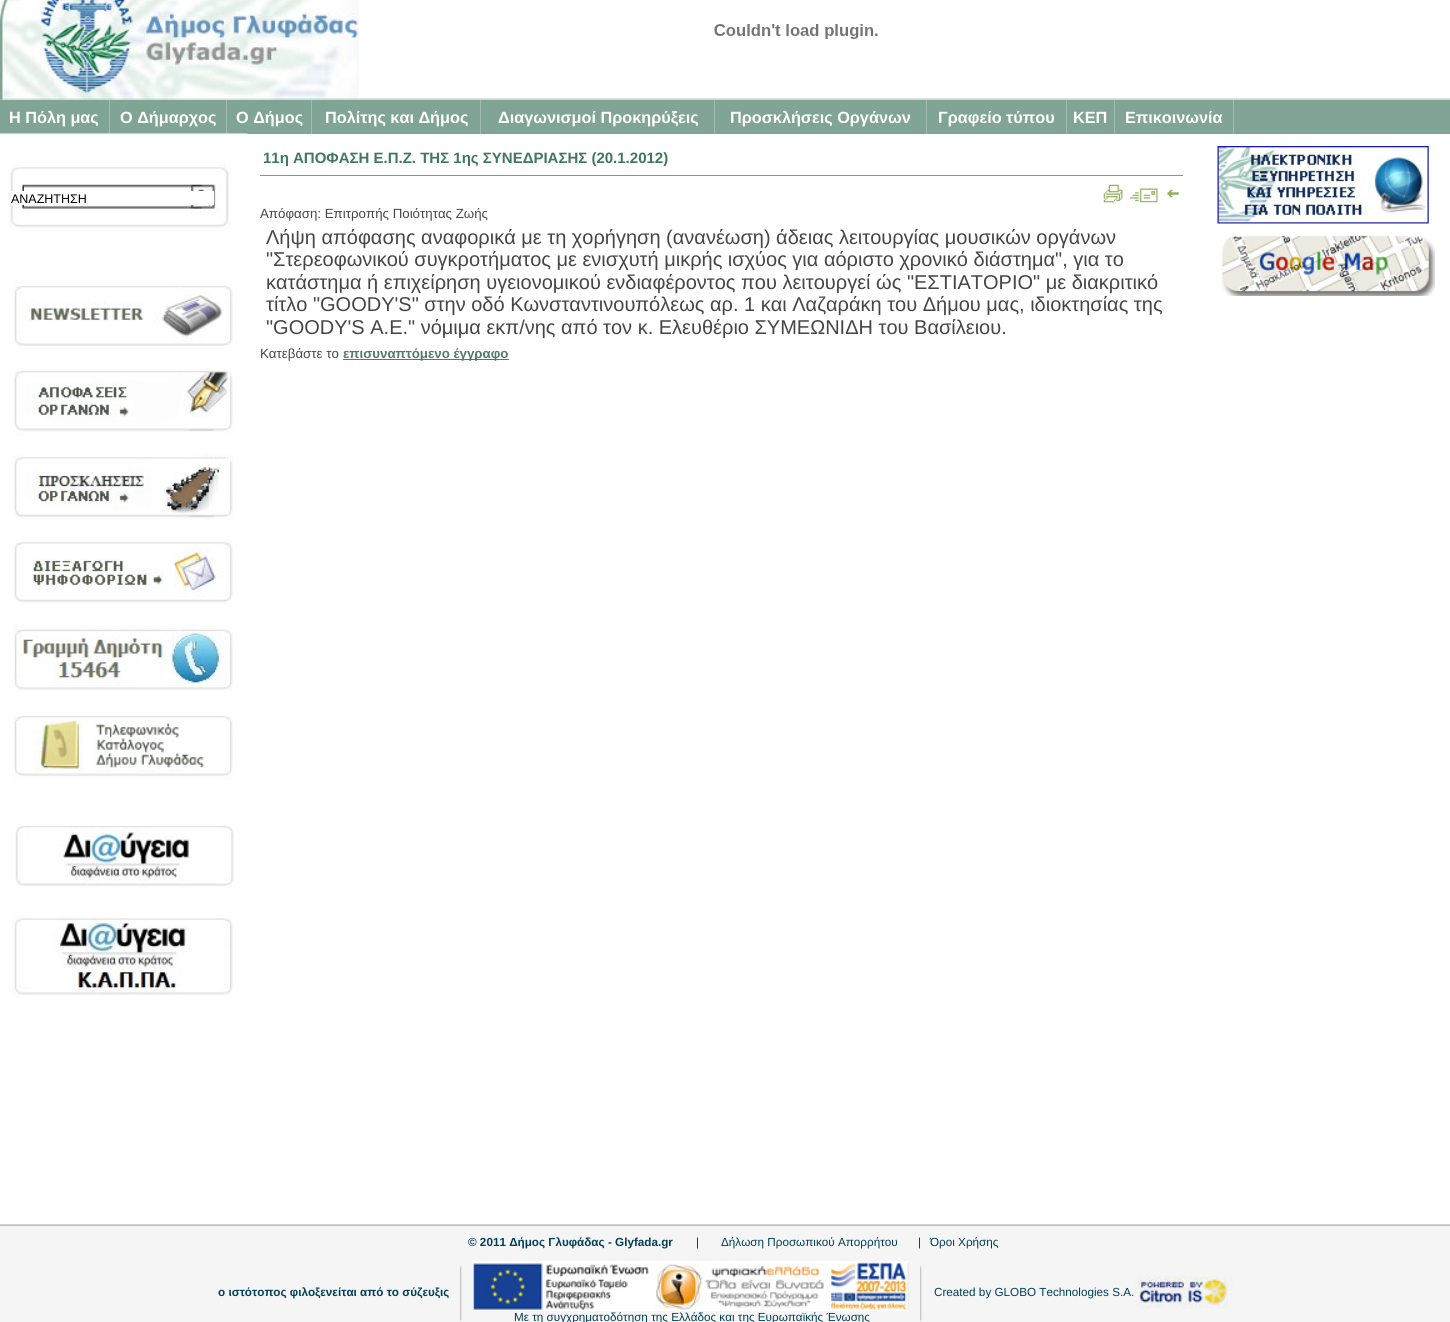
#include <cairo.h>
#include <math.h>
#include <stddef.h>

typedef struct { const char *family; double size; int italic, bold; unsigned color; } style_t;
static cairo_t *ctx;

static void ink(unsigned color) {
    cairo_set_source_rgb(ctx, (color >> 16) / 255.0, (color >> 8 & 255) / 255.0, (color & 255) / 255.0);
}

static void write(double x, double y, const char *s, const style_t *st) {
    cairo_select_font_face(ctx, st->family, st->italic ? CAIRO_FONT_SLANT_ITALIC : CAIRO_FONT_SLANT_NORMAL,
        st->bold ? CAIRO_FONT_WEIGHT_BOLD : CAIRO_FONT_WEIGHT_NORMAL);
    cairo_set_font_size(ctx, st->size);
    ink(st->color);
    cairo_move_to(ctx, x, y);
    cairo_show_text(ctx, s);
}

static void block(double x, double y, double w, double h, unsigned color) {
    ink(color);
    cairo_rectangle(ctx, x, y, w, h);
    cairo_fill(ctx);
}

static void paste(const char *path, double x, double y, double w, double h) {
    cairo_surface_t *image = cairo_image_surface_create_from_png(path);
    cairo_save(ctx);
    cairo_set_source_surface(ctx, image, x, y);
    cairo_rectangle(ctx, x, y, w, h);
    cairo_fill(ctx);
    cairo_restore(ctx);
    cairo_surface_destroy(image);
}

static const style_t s1 = {"Liberation Sans", 16.25, 0, 1, 0xffffff};
static const style_t s2 = {"Liberation Sans", 12.5, 0, 0, 0x000000};
static const style_t s3 = {"Liberation Sans", 15, 0, 1, 0x40785e};
static const style_t s4 = {"Liberation Sans", 13.3, 0, 0, 0x464646};
static const style_t s5 = {"Liberation Sans", 20, 0, 0, 0x464646};
static const style_t s6 = {"Liberation Sans", 13.3, 0, 1, 0x517b67};
static const style_t s7 = {"Liberation Sans", 11.7, 0, 1, 0x003f59};
static const style_t s8 = {"Liberation Sans", 11.7, 0, 0, 0x003f59};

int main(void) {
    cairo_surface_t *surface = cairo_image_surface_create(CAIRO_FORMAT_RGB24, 1450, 1322);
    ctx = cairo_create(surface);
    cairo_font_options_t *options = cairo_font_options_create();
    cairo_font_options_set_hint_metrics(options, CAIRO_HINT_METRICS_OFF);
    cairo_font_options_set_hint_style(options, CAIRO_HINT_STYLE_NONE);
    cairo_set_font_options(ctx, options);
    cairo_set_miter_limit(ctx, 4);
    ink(0xffffff);
    cairo_paint(ctx);
    paste("pic2.png", 358, 98, 876, 2);
    paste("pic1.png", 0, 0, 359, 100);
    paste("pic3.png", 714, 24, 164, 15);
    paste("pic4.png", 1233, 98, 217, 2);
    block(0, 100, 1233, 34, 0x81a594);
    block(109, 100, 1, 34, 0xa1bcaf);
    write(9, 123, "Η Πόλη μας", &s1);
    block(226, 100, 1, 34, 0xa1bcaf);
    write(120, 123, "Ο Δήμαρχος", &s1);
    block(311, 100, 1, 34, 0xa1bcaf);
    write(236, 123, "Ο Δήμος", &s1);
    block(480, 100, 1, 34, 0xa1bcaf);
    write(325, 123, "Πολίτης και Δήμος", &s1);
    block(714, 100, 1, 34, 0xa1bcaf);
    write(498, 123, "Διαγωνισμοί Προκηρύξεις", &s1);
    block(926, 100, 1, 34, 0xa1bcaf);
    write(730, 123, "Προσκλήσεις Οργάνων", &s1);
    block(1066, 100, 1, 34, 0xa1bcaf);
    write(938, 123, "Γραφείο τύπου", &s1);
    block(1114, 100, 1, 34, 0xa1bcaf);
    write(1073, 123, "ΚΕΠ", &s1);
    block(1233, 100, 1, 34, 0xa1bcaf);
    write(1125, 123, "Επικοινωνία", &s1);
    block(1234, 100, 216, 34, 0x81a594);
    paste("pic5.png", 0, 133, 248, 95);
    block(11, 191, 203, 14, 0xffffff);
    write(11, 203, "ΑΝΑΖΗΤΗΣΗ", &s2);
    paste("pic6.png", 14, 281, 219, 65);
    paste("pic7.png", 14, 367, 219, 68);
    paste("pic8.png", 14, 453, 220, 67);
    paste("pic9.png", 14, 540, 220, 66);
    paste("pic10.png", 13, 625, 220, 66);
    paste("pic11.png", 14, 715, 219, 65);
    paste("pic12.png", 15, 825, 219, 62);
    paste("pic13.png", 11, 915, 222, 80);
    write(263, 163, "11η ΑΠΟΦΑΣΗ Ε.Π.Ζ. ΤΗΣ 1ης ΣΥΝΕΔΡΙΑΣΗΣ (20.1.2012)", &s3);
    block(260, 175, 923, 1, 0x89a827);
    paste("pic14.png", 1103, 184, 20, 19);
    paste("pic15.png", 1130, 188, 28, 15);
    paste("pic16.png", 1167, 189, 12, 9);
    write(260, 218, "Απόφαση: Επιτροπής Ποιότητας Ζωής", &s4);
    write(266, 244, "Λήψη απόφασης αναφορικά με τη χορήγηση (ανανέωση) άδειας λειτουργίας μουσικών οργάνων", &s5);
    write(266, 266, "\"Στερεοφωνικού συγκροτήματος με ενισχυτή μικρής ισχύος για αόριστο χρονικό διάστημα\", για το", &s5);
    write(266, 289, "κατάστημα ή επιχείρηση υγειονομικού ενδιαφέροντος που λειτουργεί ώς \"ΕΣΤΙΑΤΟΡΙΟ\" με διακριτικό", &s5);
    write(266, 311, "τίτλο \"GOODY'S\" στην οδό Κωνσταντινουπόλεως αρ. 1 και Λαζαράκη του Δήμου μας, ιδιοκτησίας της", &s5);
    write(266, 334, "\"GOODY'S Α.Ε.\" νόμιμα εκπ/νης από τον κ. Ελευθέριο ΣΥΜΕΩΝΙΔΗ του Βασίλειου.", &s5);
    write(260, 358, "Κατεβάστε το", &s4);
    block(343, 359, 166, 1, 0x517b67);
    write(343, 358, "επισυναπτόμενο έγγραφο", &s6);
    paste("pic17.png", 1217, 146, 212, 78);
    paste("pic18.png", 1221, 235, 214, 61);
    block(0, 1224, 1450, 1, 0xd5d5d5);
    block(0, 1225, 1450, 1, 0xbebebe);
    block(0, 1226, 1450, 96, 0xf5f5f5);
    write(468, 1246, "© 2011 Δήμος Γλυφάδας - Glyfada.gr", &s7);
    write(696, 1246, "|", &s8);
    write(721, 1246, "Δήλωση Προσωπικού Απορρήτου", &s8);
    write(918, 1246, "|", &s8);
    write(930, 1246, "Όροι Χρήσης", &s8);
    write(218, 1296, "ο ιστότοπος φιλοξενείται από το σύζευξις", &s7);
    paste("pic19.png", 448, 1265, 14, 57);
    paste("pic20.png", 920, 1265, 2, 57);
    write(934, 1296, "Created by GLOBO Technologies S.A.", &s8);
    paste("pic21.png", 1134, 1276, 99, 33);
    paste("pic22.png", 473, 1261, 436, 50);
    write(514, 1321, "Με τη συγχρηματοδότηση της Ελλάδος και της Ευρωπαϊκής Ένωσης", &s8);
    cairo_surface_write_to_png(surface, "screenshot.png");
    cairo_font_options_destroy(options);
    cairo_destroy(ctx);
    cairo_surface_destroy(surface);
    return 0;
}
